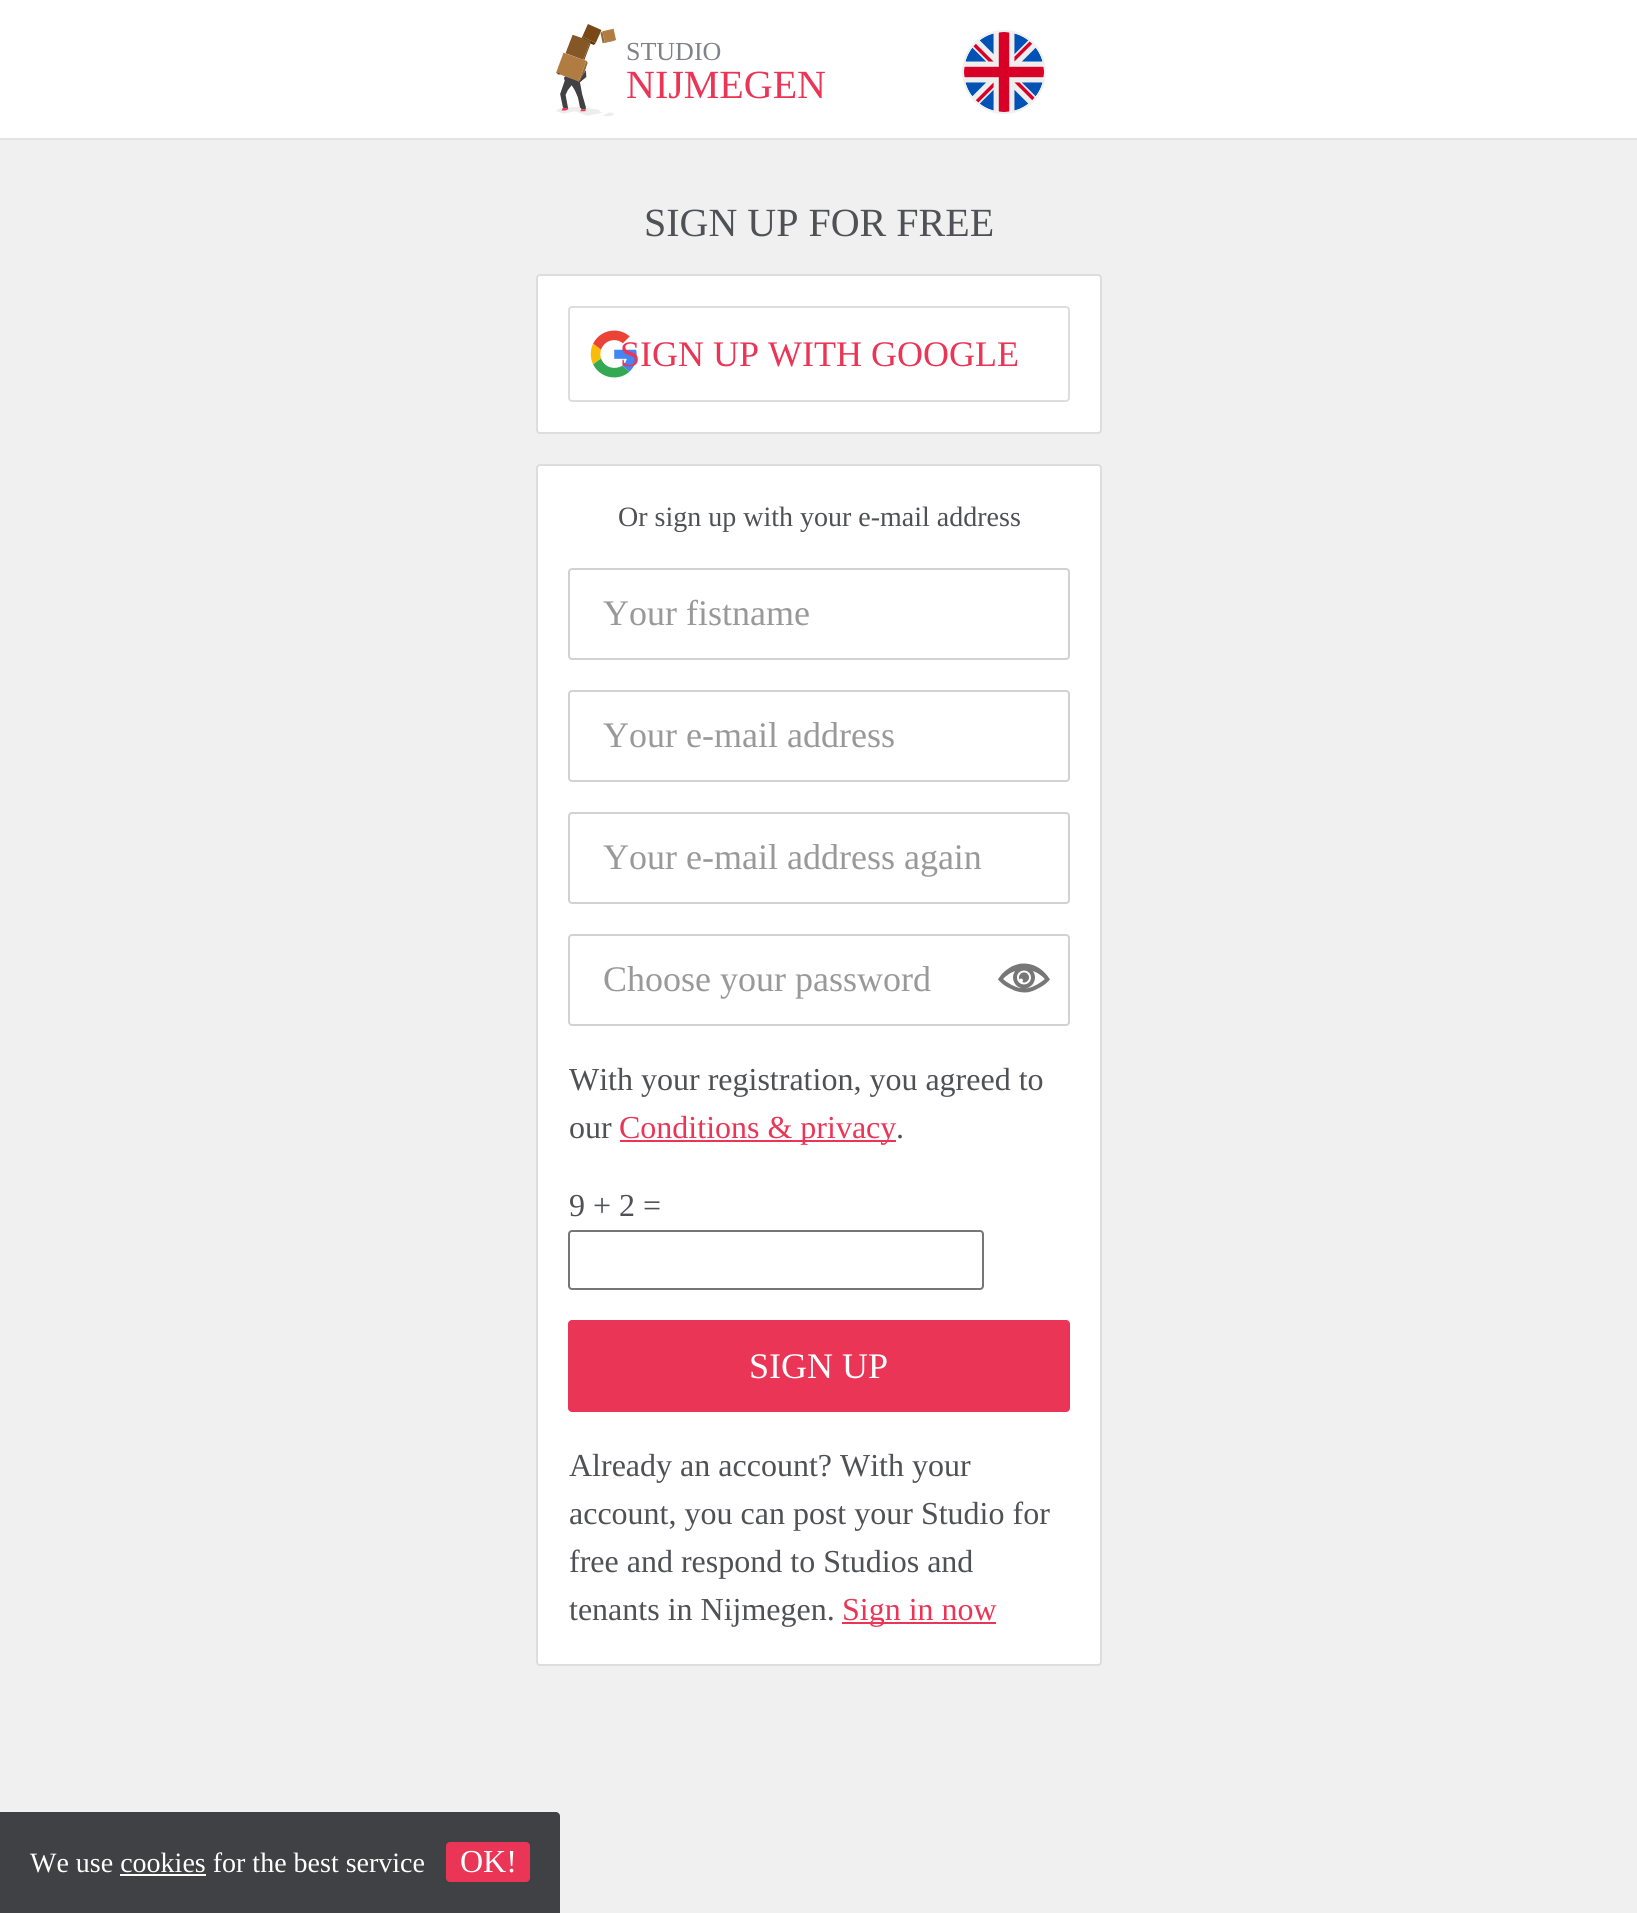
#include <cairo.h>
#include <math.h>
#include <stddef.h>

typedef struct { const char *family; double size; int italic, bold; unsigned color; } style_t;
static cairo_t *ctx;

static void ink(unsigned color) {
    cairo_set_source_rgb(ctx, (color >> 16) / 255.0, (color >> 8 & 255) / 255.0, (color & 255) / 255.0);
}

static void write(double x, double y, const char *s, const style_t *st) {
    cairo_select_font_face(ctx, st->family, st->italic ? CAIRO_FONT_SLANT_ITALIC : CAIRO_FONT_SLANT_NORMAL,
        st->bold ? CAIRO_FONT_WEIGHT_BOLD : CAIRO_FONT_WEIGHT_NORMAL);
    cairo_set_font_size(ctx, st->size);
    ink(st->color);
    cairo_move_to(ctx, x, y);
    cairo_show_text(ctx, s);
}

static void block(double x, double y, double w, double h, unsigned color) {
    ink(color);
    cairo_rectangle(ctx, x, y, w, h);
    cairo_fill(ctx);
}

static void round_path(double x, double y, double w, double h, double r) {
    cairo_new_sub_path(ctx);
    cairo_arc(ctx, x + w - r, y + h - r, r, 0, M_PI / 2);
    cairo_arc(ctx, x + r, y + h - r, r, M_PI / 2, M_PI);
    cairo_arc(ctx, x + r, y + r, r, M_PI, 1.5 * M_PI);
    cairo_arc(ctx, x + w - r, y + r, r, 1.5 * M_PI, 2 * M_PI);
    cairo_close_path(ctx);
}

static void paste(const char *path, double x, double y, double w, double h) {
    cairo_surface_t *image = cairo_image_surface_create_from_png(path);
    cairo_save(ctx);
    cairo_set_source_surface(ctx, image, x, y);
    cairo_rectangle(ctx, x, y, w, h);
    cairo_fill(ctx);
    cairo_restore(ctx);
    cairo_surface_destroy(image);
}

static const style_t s1 = {"Liberation Serif", 26, 0, 0, 0x808285};
static const style_t s2 = {"Liberation Serif", 40, 0, 0, 0xea3556};
static const style_t s3 = {"Liberation Serif", 40, 0, 0, 0x4f5154};
static const style_t s4 = {"Liberation Serif", 36, 0, 0, 0xea3556};
static const style_t s5 = {"Liberation Serif", 28, 0, 0, 0x4f5154};
static const style_t s6 = {"Liberation Serif", 36, 0, 0, 0x999999};
static const style_t s7 = {"Liberation Serif", 32, 0, 0, 0x4f5154};
static const style_t s8 = {"Liberation Serif", 32, 0, 0, 0xea3556};
static const style_t s9 = {"Liberation Serif", 36, 0, 0, 0xffffff};
static const style_t s10 = {"Liberation Serif", 28, 0, 0, 0xffffff};
static const style_t s11 = {"Liberation Serif", 32, 0, 0, 0xffffff};

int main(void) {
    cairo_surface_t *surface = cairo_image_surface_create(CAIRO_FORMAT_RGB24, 1637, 1913);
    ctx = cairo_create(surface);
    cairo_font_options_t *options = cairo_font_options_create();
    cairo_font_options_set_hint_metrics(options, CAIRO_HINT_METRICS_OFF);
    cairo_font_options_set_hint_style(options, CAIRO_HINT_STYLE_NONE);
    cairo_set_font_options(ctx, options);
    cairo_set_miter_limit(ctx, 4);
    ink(0xf0f0f0);
    cairo_paint(ctx);
    block(0, 0, 1637, 138, 0xffffff);
    block(0, 138, 1637, 2, 0xe3e3e3);
    paste("pic1.png", 556, 24, 60, 92);
    write(626, 60, "STUDIO", &s1);
    write(626, 98, "NIJMEGEN", &s2);
    cairo_new_path(ctx);
    cairo_arc(ctx, 1004, 72, 41, 0, 2 * M_PI);
    ink(0xf0f0f0);
    cairo_stroke(ctx);
    paste("pic2.png", 964, 32, 80, 80);
    write(644, 236, "SIGN UP FOR FREE", &s3);
    ink(0xffffff);
    round_path(537, 275, 564, 158, 3);
    cairo_fill_preserve(ctx);
    ink(0xdddddd);
    cairo_stroke(ctx);
    paste("pic3.png", 590, 330, 47, 48);
    round_path(569, 307, 500, 94, 3);
    cairo_stroke(ctx);
    write(620, 366, "SIGN UP WITH GOOGLE", &s4);
    ink(0xffffff);
    round_path(537, 465, 564, 1200, 3);
    cairo_fill_preserve(ctx);
    ink(0xdddddd);
    cairo_stroke(ctx);
    write(618, 526, "Or sign up with your e-mail address", &s5);
    round_path(569, 569, 500, 90, 3);
    ink(0xd2d2d2);
    cairo_stroke(ctx);
    write(603, 625, "Your fistname", &s6);
    round_path(569, 691, 500, 90, 3);
    ink(0xd2d2d2);
    cairo_stroke(ctx);
    write(603, 747, "Your e-mail address", &s6);
    round_path(569, 813, 500, 90, 3);
    ink(0xd2d2d2);
    cairo_stroke(ctx);
    write(603, 869, "Your e-mail address again", &s6);
    round_path(569, 935, 500, 90, 3);
    ink(0xd2d2d2);
    cairo_stroke(ctx);
    write(603, 991, "Choose your password", &s6);
    paste("pic4.png", 998, 963, 52, 30);
    write(569, 1090, "With your registration, you agreed to", &s7);
    write(569, 1138, "our", &s7);
    block(620, 1140, 276, 2, 0xea3556);
    write(619, 1138, "Conditions & privacy", &s8);
    write(896, 1138, ".", &s7);
    write(569, 1216, "9 + 2 =", &s7);
    round_path(569, 1231, 414, 58, 3);
    ink(0x767676);
    cairo_stroke(ctx);
    ink(0xea3556);
    round_path(568, 1320, 502, 92, 4);
    cairo_fill(ctx);
    write(749, 1378, "SIGN UP", &s9);
    write(569, 1476, "Already an account? With your", &s7);
    write(569, 1524, "account, you can post your Studio for", &s7);
    write(569, 1572, "free and respond to Studios and", &s7);
    write(569, 1620, "tenants in Nijmegen.", &s7);
    block(842, 1622, 154, 2, 0xea3556);
    write(842, 1620, "Sign in now", &s8);
    ink(0x3f4144);
    cairo_new_path(ctx);
    cairo_move_to(ctx, 0, 1812);
    cairo_line_to(ctx, 556, 1812);
    cairo_curve_to(ctx, 558, 1812, 560, 1814, 560, 1816);
    cairo_line_to(ctx, 560, 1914);
    cairo_line_to(ctx, 0, 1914);
    cairo_close_path(ctx);
    cairo_fill(ctx);
    write(30, 1872, "We use cookies for the best service", &s10);
    ink(0xea3556);
    round_path(446, 1842, 84, 40, 4);
    cairo_fill(ctx);
    write(460, 1872, "OK!", &s11);
    block(120, 1874, 86, 2, 0xffffff);
    cairo_surface_write_to_png(surface, "screenshot.png");
    cairo_font_options_destroy(options);
    cairo_destroy(ctx);
    cairo_surface_destroy(surface);
    return 0;
}
